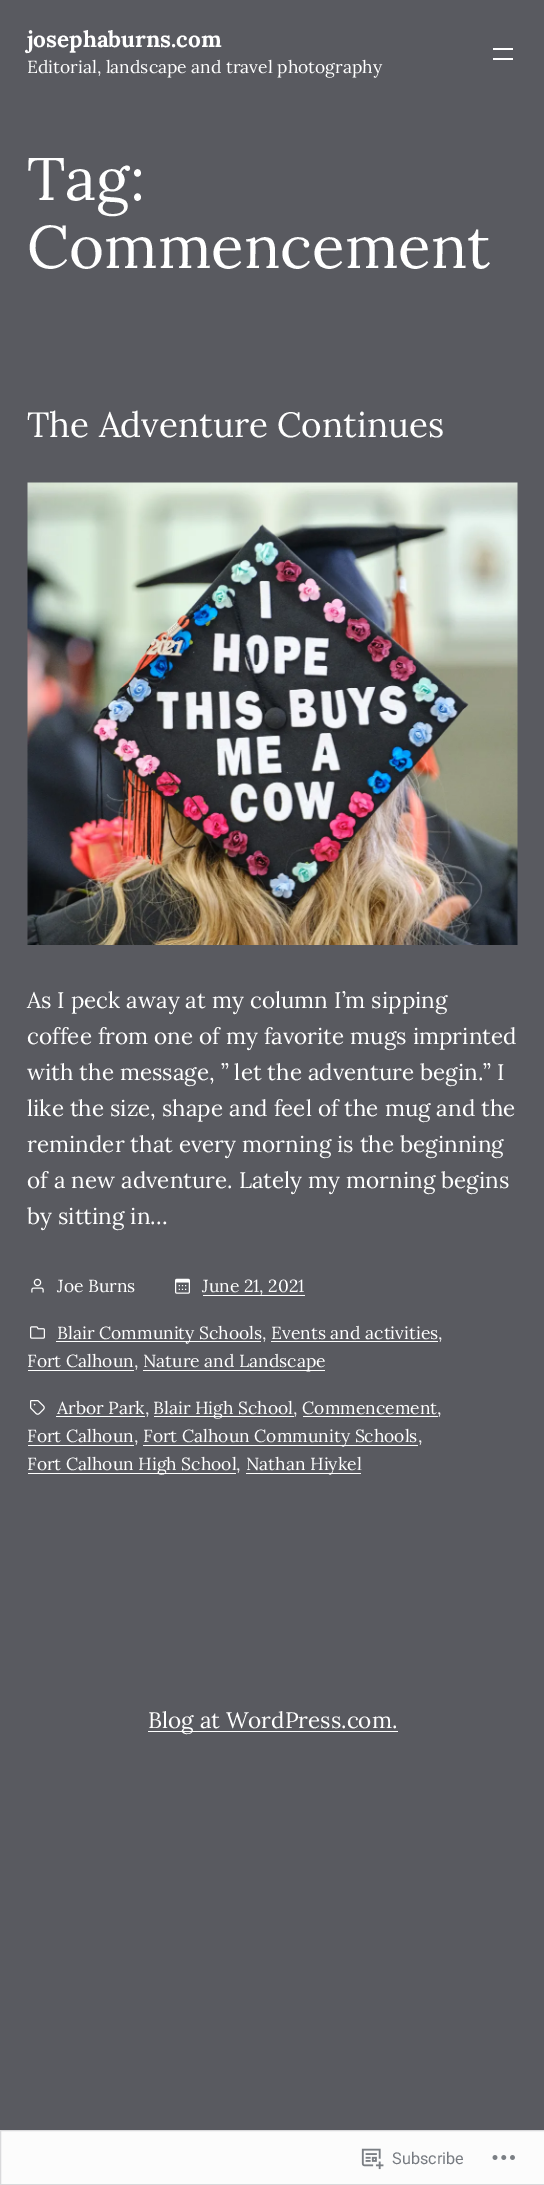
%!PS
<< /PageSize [544 2185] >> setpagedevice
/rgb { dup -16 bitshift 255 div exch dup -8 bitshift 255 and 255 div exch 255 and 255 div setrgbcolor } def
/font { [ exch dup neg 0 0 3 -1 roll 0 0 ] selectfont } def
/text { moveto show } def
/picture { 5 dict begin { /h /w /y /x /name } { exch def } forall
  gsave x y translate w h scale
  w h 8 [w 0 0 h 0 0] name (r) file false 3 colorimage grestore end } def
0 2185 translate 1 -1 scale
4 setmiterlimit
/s1 { /Lora-Bold 22.5 font 16#FFFFFF rgb } def
/s2 { /Lora-Regular 17.5 font 16#FFFFFF rgb } def
/s3 { /Lora-Regular 60 font 16#FFFFFF rgb } def
/s4 { /Lora-Regular 35 font 16#FFFFFF rgb } def
/s5 { /Lora-Regular 22.5 font 16#FFFFFF rgb } def
/s6 { /Roboto-Regular 16.25 font 16#777B81 rgb } def
16#595A60 rgb
0 0 544 2185 rectfill
s1
(josephaburns.com) 27 47 text
s2
(Editorial, landscape and travel photography) 27 73 text
493 48 20 2 rectfill
493 58 20 2 rectfill
s3
(Tag:) 27 200 text
(Commencement) 27 268 text
s4
(The Adventure Continues) 27 437 text
(pic1.raw) 27 482 491 463 picture
s5
(As I peck away at my column I’m sipping) 27 1008 text
(coffee from one of my favorite mugs imprinted) 27 1044 text
(with the message, ” let the adventure begin.” I) 27 1080 text
(like the size, shape and feel of the mug and the) 27 1116 text
(reminder that every morning is the beginning) 27 1152 text
(of a new adventure. Lately my morning begins) 27 1188 text
(by sitting in…) 27 1224 text
(pic2.raw) 31 1278 13 15 picture
s2
(Joe Burns) 57 1292 text
(pic3.raw) 175 1278 15 16 picture
203 1295 102 1 rectfill
(June 21, 2021) 202 1292 text
(pic4.raw) 30 1326 15 13 picture
56 1341 205 1 rectfill
(Blair Community Schools, Events and activities,) 57 1339 text
271 1341 167 1 rectfill
28 1370 106 1 rectfill
(Fort Calhoun,) 27 1367 text
143 1370 182 1 rectfill
(Nature and Landscape) 143 1367 text
(pic5.raw) 30 1400 15 15 picture
56 1416 89 1 rectfill
(Arbor Park,) 57 1414 text
154 1416 140 1 rectfill
(Blair High School, Commencement,) 153 1414 text
303 1416 135 1 rectfill
28 1445 106 1 rectfill
(Fort Calhoun,) 27 1442 text
143 1445 275 1 rectfill
(Fort Calhoun Community Schools,) 143 1442 text
28 1473 208 1 rectfill
(Fort Calhoun High School,) 27 1470 text
246 1473 115 1 rectfill
(Nathan Hiykel) 246 1470 text
148 1731 250 1 rectfill
s5
(Blog at WordPress.com.) 148 1728 text
16#FCFCFC rgb
0.5 2130.5 moveto 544.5 2130.5 lineto 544.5 2184.5 lineto 0.5 2184.5 lineto closepath gsave fill grestore
16#D9D9DB rgb
stroke
(pic6.raw) 361 2148 23 22 picture
s6
(Subscribe) 392 2164 text
(pic7.raw) 492 2155 23 5 picture
showpage
